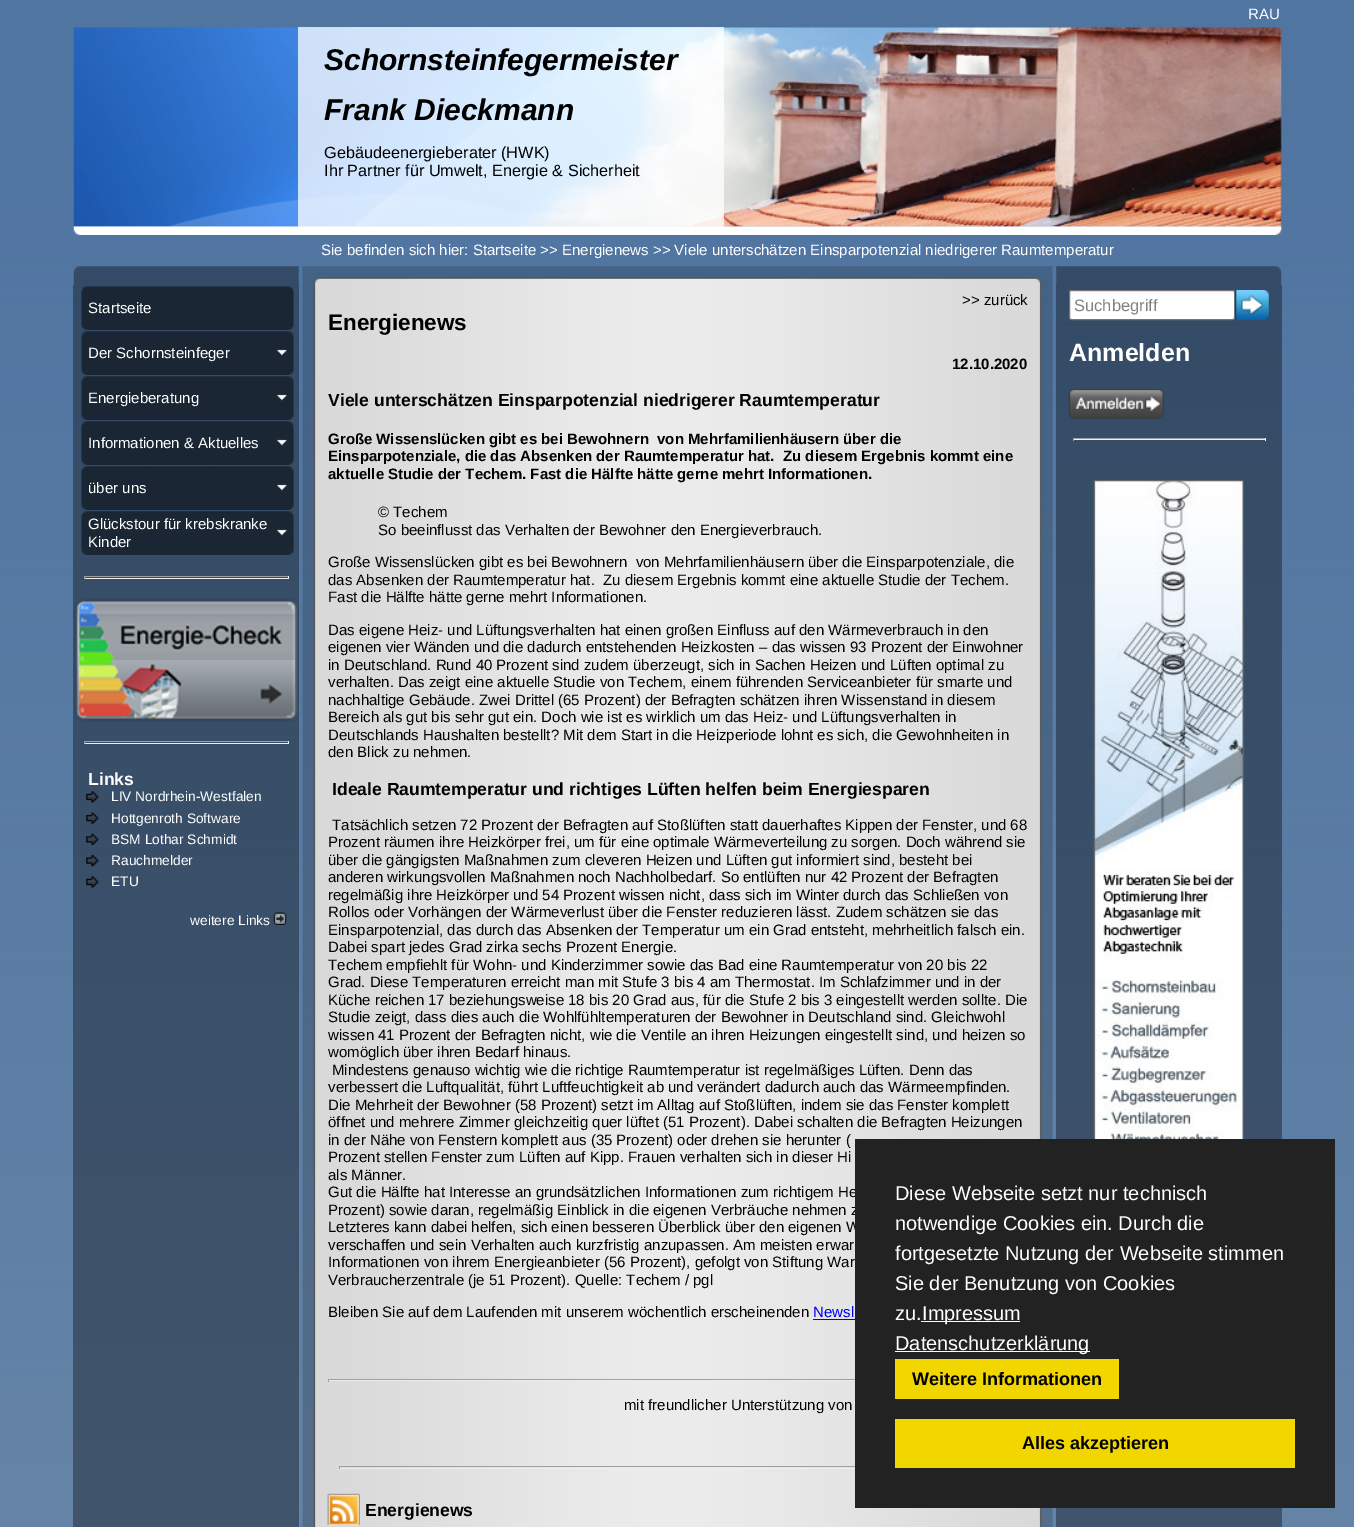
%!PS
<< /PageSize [1354 1527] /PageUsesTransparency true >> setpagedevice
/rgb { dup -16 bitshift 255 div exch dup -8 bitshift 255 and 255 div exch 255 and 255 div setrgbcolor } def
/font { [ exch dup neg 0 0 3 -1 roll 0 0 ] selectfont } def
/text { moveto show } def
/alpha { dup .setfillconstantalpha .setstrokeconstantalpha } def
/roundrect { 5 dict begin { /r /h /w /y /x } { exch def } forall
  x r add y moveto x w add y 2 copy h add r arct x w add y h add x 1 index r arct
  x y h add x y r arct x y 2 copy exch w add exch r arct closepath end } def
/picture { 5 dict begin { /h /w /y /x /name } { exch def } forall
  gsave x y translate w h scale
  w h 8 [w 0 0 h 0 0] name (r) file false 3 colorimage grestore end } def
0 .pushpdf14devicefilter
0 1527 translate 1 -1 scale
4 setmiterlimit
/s1 { /LiberationSans-Regular 15 font 16#FFFFFF rgb } def
/s2 { /LiberationSans-BoldItalic 30 font 16#000000 rgb } def
/s3 { /LiberationSans-Regular 16.25 font 16#000000 rgb } def
/s4 { /LiberationSans-Bold 17.55 font 16#FFFFFF rgb } def
/s5 { /LiberationSans-Regular 13.75 font 16#FFFFFF rgb } def
/s6 { /LiberationSans-Regular 15 font 16#000000 rgb } def
/s7 { /LiberationSans-Bold 22.5 font 16#000000 rgb } def
/s8 { /LiberationSans-Bold 15 font 16#000000 rgb } def
/s9 { /LiberationSans-Bold 17.55 font 16#000000 rgb } def
/s10 { /LiberationSans-Regular 15 font 16#0000EE rgb } def
/s11 { /LiberationSans-Regular 16.5 font 16#808080 rgb } def
/s12 { /LiberationSans-Bold 25 font 16#FFFFFF rgb } def
/s13 { /LiberationSans-Regular 20 font 16#FFFFFF rgb } def
/s14 { /LiberationSans-Bold 18 font 16#000000 rgb } def
16#FFFFFF rgb
0 0 1354 1527 rectfill
(pic1.raw) 0 0 1354 1527 picture
s1
(RAU) 1248 19 text
(pic3.raw) 73 226 1209 9 picture
(pic2.raw) 73 27 1209 200 picture
0.75 alpha
298 27 426 200 rectfill
1 alpha
s2
(Schornsteinfegermeister) 324 70 text
(Frank Dieckmann) 324 120 text
s3
(Gebäudeenergieberater \(HWK\)) 324 158 text
(Ihr Partner für Umwelt, Energie & Sicherheit) 324 176 text
s1
(Sie befinden sich hier: Startseite >> Energienews >> Viele unterschätzen Einsparpotenzial niedrigerer Raumtemperatur) 321 255 text
(pic4.raw) 73 266 226 19 picture
(pic5.raw) 302 266 751 19 picture
(pic6.raw) 1056 266 226 19 picture
0.36 alpha
16#000000 rgb
73 285 226 1242 rectfill
1 alpha
(pic7.raw) 81 286 213 44 picture
s1
(Startseite) 88 313 text
(pic8.raw) 81 331 213 44 picture
(Der Schornsteinfeger) 88 358 text
(pic9.raw) 277 349 10 7 picture
(pic10.raw) 81 376 213 44 picture
(Energieberatung) 88 403 text
(pic11.raw) 277 394 10 7 picture
(pic12.raw) 81 421 213 44 picture
(Informationen & Aktuelles) 88 448 text
(pic13.raw) 277 439 10 7 picture
(pic14.raw) 81 466 213 44 picture
(über uns) 88 493 text
(pic15.raw) 277 484 10 7 picture
(pic16.raw) 81 511 213 44 picture
(Glückstour für krebskranke) 88 529 text
(Kinder) 88 547 text
(pic17.raw) 277 529 10 7 picture
16#9F9F9F rgb
84 576 205 1 rectfill
16#EEEEEE rgb
288 576 1 3 rectfill
84 578 205 1 rectfill
16#9F9F9F rgb
84 576 1 3 rectfill
(pic18.raw) 74 598 225 124 picture
84 741 205 1 rectfill
16#EEEEEE rgb
288 741 1 3 rectfill
84 743 205 1 rectfill
16#9F9F9F rgb
84 741 1 3 rectfill
s4
(Links) 88 785 text
(pic19.raw) 86 791 13 12 picture
s5
(LIV Nordrhein-Westfalen) 111 801 text
(pic20.raw) 86 812 13 12 picture
(Hottgenroth Software) 111 823 text
(pic21.raw) 86 833 13 12 picture
(BSM Lothar Schmidt) 111 844 text
(pic22.raw) 86 855 13 12 picture
(Rauchmelder) 111 865 text
(pic23.raw) 86 876 13 12 picture
(ETU) 111 886 text
(weitere Links) 190 925 text
(pic24.raw) 273 912 14 13 picture
(pic25.raw) 302 285 751 1242 picture
s6
(>> zurück) 962 305 text
s7
(Energienews) 328 330 text
s8
(12.10.2020) 952 369 text
s9
(Viele unterschätzen Einsparpotenzial niedrigerer Raumtemperatur) 328 406 text
s8
(Große Wissenslücken gibt es bei Bewohnern  von Mehrfamilienhäusern über die) 328 444 text
(Einsparpotenziale, die das Absenken der Raumtemperatur hat.  Zu diesem Ergebnis kommt eine) 328 461 text
(aktuelle Studie der Techem. Fast die Hälfte hätte gerne mehrt Informationen.) 328 479 text
s6
(© Techem) 378 517 text
(So beeinflusst das Verhalten der Bewohner den Energieverbrauch.) 378 535 text
(Große Wissenslücken gibt es bei Bewohnern  von Mehrfamilienhäusern über die Einsparpotenziale, die) 328 567 text
(das Absenken der Raumtemperatur hat.  Zu diesem Ergebnis kommt eine aktuelle Studie der Techem.) 328 585 text
(Fast die Hälfte hätte gerne mehrt Informationen.) 328 602 text
(Das eigene Heiz- und Lüftungsverhalten hat einen großen Einfluss auf den Wärmeverbrauch in den) 328 635 text
(eigenen vier Wänden und die dadurch entstehenden Heizkosten – das wissen 93 Prozent der Einwohner) 328 652 text
(in Deutschland. Rund 40 Prozent sind zudem überzeugt, sich in Sachen Heizen und Lüften optimal zu) 328 670 text
(verhalten. Das zeigt eine aktuelle Studie von Techem, einem führenden Serviceanbieter für smarte und) 328 687 text
(nachhaltige Gebäude. Zwei Drittel \(65 Prozent\) der Befragten schätzen ihren Wissenstand in diesem) 328 705 text
(Bereich als gut bis sehr gut ein. Doch wie ist es wirklich um das Heiz- und Lüftungsverhalten in) 328 722 text
(Deutschlands Haushalten bestellt? Mit dem Start in die Heizperiode lohnt es sich, die Gewohnheiten in) 328 740 text
(den Blick zu nehmen.) 328 757 text
s9
(Ideale Raumtemperatur und richtiges Lüften helfen beim Energiesparen) 332 795 text
s6
(Tatsächlich setzen 72 Prozent der Befragten auf Stoßlüften statt dauerhaftes Kippen der Fenster, und 68) 332 830 text
(Prozent räumen ihre Heizkörper frei, um für eine optimale Wärmeverteilung zu sorgen. Doch während sie) 328 847 text
(über die gängigsten Maßnahmen zum cleveren Heizen und Lüften gut informiert sind, besteht bei) 328 865 text
(anderen wirkungsvollen Maßnahmen noch Nachholbedarf. So entlüften nur 42 Prozent der Befragten) 328 882 text
(regelmäßig ihre Heizkörper und 54 Prozent wissen nicht, dass sich im Winter durch das Schließen von) 328 900 text
(Rollos oder Vorhängen der Wärmeverlust über die Fenster reduzieren lässt. Zudem schätzen sie das) 328 917 text
(Einsparpotenzial, das durch das Absenken der Temperatur um ein Grad entsteht, mehrheitlich falsch ein.) 328 935 text
(Dabei spart jedes Grad zirka sechs Prozent Energie.) 328 952 text
(Techem empfiehlt für Wohn- und Kinderzimmer sowie das Bad eine Raumtemperatur von 20 bis 22) 328 970 text
(Grad. Diese Temperaturen erreicht man mit Stufe 3 bis 4 am Thermostat. Im Schlafzimmer und in der) 328 987 text
(Küche reichen 17 beziehungsweise 18 bis 20 Grad aus, für die Stufe 2 bis 3 eingestellt werden sollte. Die) 328 1005 text
(Studie zeigt, dass dies auch die Wohlfühltemperaturen der Bewohner in Deutschland sind. Gleichwohl) 328 1022 text
(wissen 41 Prozent der Befragten nicht, wie die Ventile an ihren Heizungen eingestellt sind, und heizen so) 328 1040 text
(womöglich über ihren Bedarf hinaus.) 328 1057 text
(Mindestens genauso wichtig wie die richtige Raumtemperatur ist regelmäßiges Lüften. Denn das) 332 1075 text
(verbessert die Luftqualität, führt Luftfeuchtigkeit ab und verändert dadurch auch das Wärmeempfinden.) 328 1092 text
(Die Mehrheit der Bewohner \(58 Prozent\) setzt im Alltag auf Stoßlüften, indem sie das Fenster komplett) 328 1110 text
(öffnet und mehrere Zimmer gleichzeitig quer lüftet \(51 Prozent\). Dabei schalten die Befragten Heizungen) 328 1127 text
(in der Nähe von Fenstern komplett aus \(35 Prozent\) oder drehen sie herunter \() 328 1145 text
(Prozent stellen Fenster zum Lüften auf Kipp. Frauen verhalten sich in dieser Hi) 328 1162 text
(als Männer.) 328 1180 text
(Gut die Hälfte hat Interesse an grundsätzlichen Informationen zum richtigem He) 328 1197 text
(Prozent\) sowie daran, regelmäßig Einblick in die eigenen Verbräuche nehmen z) 328 1215 text
(Letzteres kann dabei helfen, sich einen besseren Überblick über den eigenen W) 328 1232 text
(verschaffen und sein Verhalten auch kurzfristig anzupassen. Am meisten erwar) 328 1250 text
(Informationen von ihrem Energieanbieter \(56 Prozent\), gefolgt von Stiftung War) 328 1267 text
(Verbraucherzentrale \(je 51 Prozent\). Quelle: Techem / pgl) 328 1285 text
(Bleiben Sie auf dem Laufenden mit unserem wöchentlich erscheinenden) 328 1317 text
s10
(Newsl) 813 1317 text
813 1319 42 1 rectfill
16#9F9F9F rgb
328 1379 527 1 rectfill
16#EEEEEE rgb
328 1380 527 1 rectfill
16#9F9F9F rgb
328 1379 1 3 rectfill
s6
(mit freundlicher Unterstützung von) 624 1410 text
16#9F9F9F rgb
339 1466 516 1 rectfill
16#EEEEEE rgb
339 1468 516 1 rectfill
16#9F9F9F rgb
339 1466 1 3 rectfill
(pic26.raw) 327 1493 33 32 picture
s9
(Energienews) 365 1516 text
0.36 alpha
1056 285 226 1242 rectfill
1 alpha
16#FFFFFF rgb
1069.5 290.5 165 29 2 roundrect gsave fill grestore
16#767676 rgb
stroke
s11
(Suchbegriff) 1074 311 text
(pic27.raw) 1235 290 34 30 picture
s12
(Anmelden) 1069 361 text
(pic28.raw) 1068 388 96 31 picture
16#9F9F9F rgb
1073 438 193 1 rectfill
16#EEEEEE rgb
1265 438 1 3 rectfill
1073 439 193 1 rectfill
16#9F9F9F rgb
1073 438 1 3 rectfill
(pic29.raw) 1093 480 151 659 picture
16#222222 rgb
855 1139 480 369 rectfill
s13
(Diese Webseite setzt nur technisch) 895 1200 text
(notwendige Cookies ein. Durch die) 895 1230 text
(fortgesetzte Nutzung der Webseite stimmen) 895 1260 text
(Sie der Benutzung von Cookies) 895 1290 text
(zu.) 895 1320 text
921 1321 99 1 rectfill
(Impressum) 922 1320 text
895 1351 195 1 rectfill
(Datenschutzerklärung) 895 1350 text
16#F1D600 rgb
895 1359 224 40 rectfill
s14
(Weitere Informationen) 912 1385 text
16#F1D600 rgb
895 1419 400 49 rectfill
s14
(Alles akzeptieren) 1022 1449 text
.poppdf14devicefilter showpage
